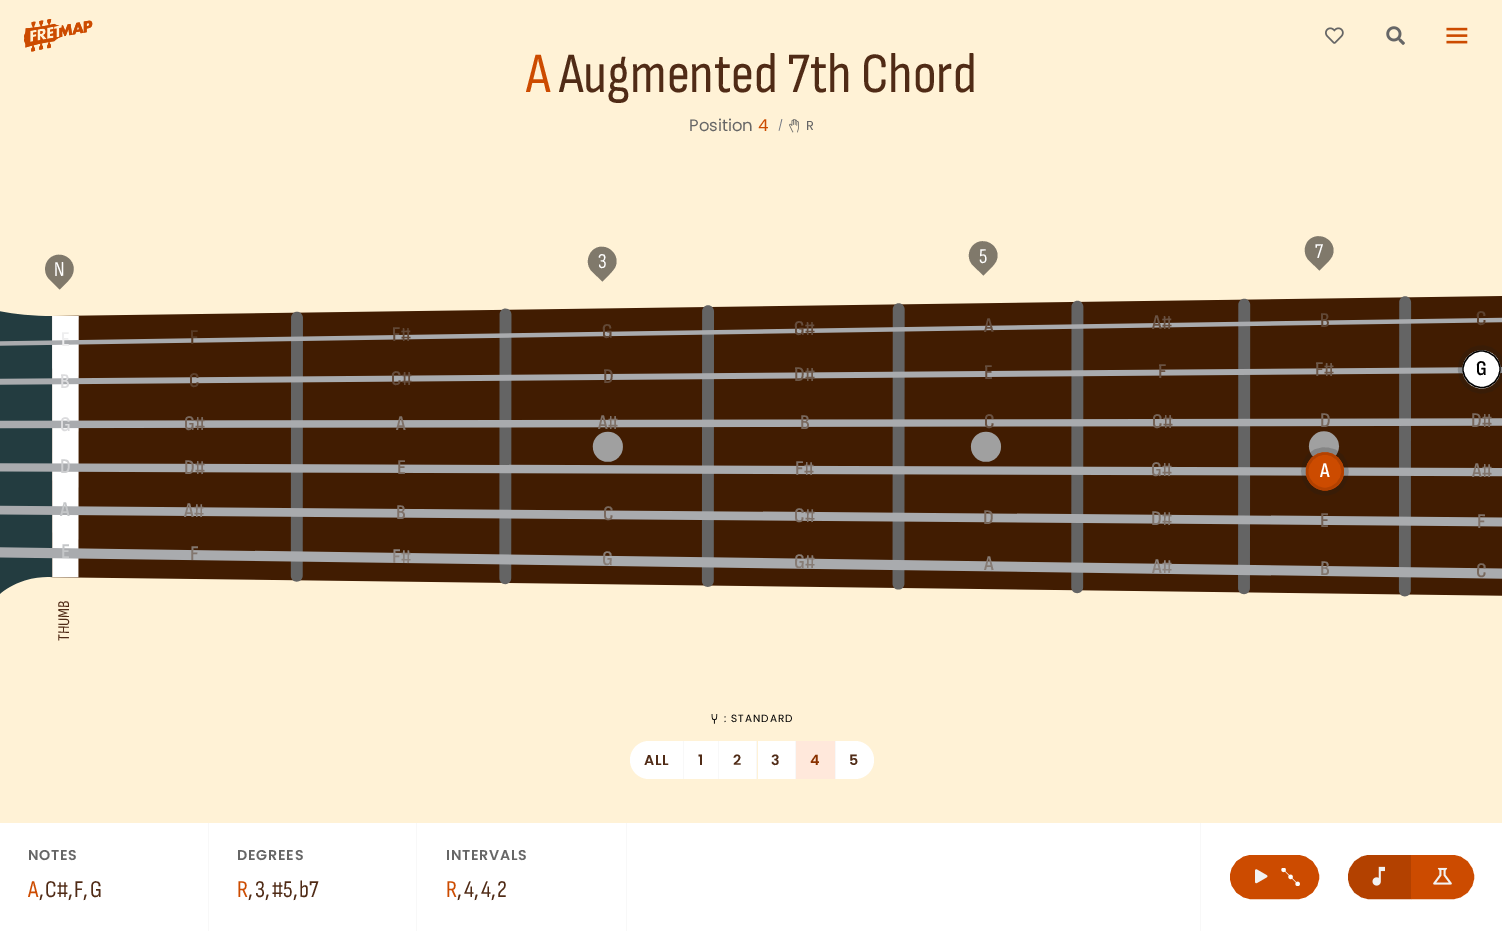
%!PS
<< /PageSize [1502 931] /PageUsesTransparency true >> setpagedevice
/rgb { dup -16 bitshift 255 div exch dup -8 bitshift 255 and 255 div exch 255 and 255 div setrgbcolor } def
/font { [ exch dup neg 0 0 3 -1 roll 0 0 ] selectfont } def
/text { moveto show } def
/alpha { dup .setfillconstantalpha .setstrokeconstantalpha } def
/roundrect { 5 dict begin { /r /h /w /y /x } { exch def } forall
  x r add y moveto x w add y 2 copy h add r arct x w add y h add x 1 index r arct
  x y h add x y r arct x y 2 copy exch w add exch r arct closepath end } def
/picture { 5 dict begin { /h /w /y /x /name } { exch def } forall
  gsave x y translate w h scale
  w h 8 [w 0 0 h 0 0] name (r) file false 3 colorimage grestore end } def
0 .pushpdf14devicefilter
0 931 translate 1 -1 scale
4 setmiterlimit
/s1 { /SofiaSansCondensed-Regular 57 font 16#CC4B00 rgb } def
/s2 { /SofiaSansCondensed-Regular 57 font 16#502B16 rgb } def
/s3 { /Poppins-Regular 16.5 font 16#666666 rgb } def
/s4 { /Poppins-Regular 16.5 font 16#CC4B00 rgb } def
/s5 { /Poppins-Regular 10.5 font 16#6B7280 rgb } def
/s6 { /Poppins-Regular 13 font 16#666666 rgb } def
/s7 { /SofiaSansCondensed-Regular 24 font 16#CC4B00 rgb } def
/s8 { /SofiaSansCondensed-Regular 24 font 16#502B16 rgb } def
16#FFF2D6 rgb
0 0 1502 931 rectfill
(pic1.raw) 24 19 69 33 picture
(pic2.raw) 1325 27 19 17 picture
(pic3.raw) 1386 26 19 19 picture
(pic4.raw) 1446 27 22 17 picture
s1
(A) 526 92 text
s2
(Augmented 7th Chord) 559 92 text
s3
(Position) 689 131 text
s4
(4) 758 131 text
s5
(/) 778 129 text
(pic5.raw) 789 119 10 14 picture
s6
(R) 806 130 text
(pic6.raw) 0 296 1502 301 picture
16#80796B rgb
49 259 moveto 60 248 78.5 260 72.5 274.5 curveto 71 279 63.5 285.5 59.5 289.5 curveto 49.5 279.5 lineto 44 274 43.5 265 49 259 curveto closepath fill
/SofiaSansCondensed-Regular 21 font
16#FFFFFF rgb
gsave 54 276 translate -0.9 rotate 0 0 moveto (N) show grestore
/SofiaSansCondensed-SemiBold 21 font
16#EEEEEF rgb
gsave 61 346 translate -0.9 rotate 0 0 moveto (E) show grestore
16#573A25 rgb
gsave 190 344 translate -0.9 rotate 0 0 moveto (F) show grestore
16#614836 rgb
gsave 392 341 translate -0.9 rotate 0 0 moveto (F#) show grestore
16#80796B rgb
592 251 moveto 602.5 240 621 252 615.5 266.5 curveto 613.5 271 606 277.5 602.5 281.5 curveto 592 271.5 lineto 586.5 266 586.5 257 592 251 curveto closepath fill
/SofiaSansCondensed-Regular 21 font
16#FFFFFF rgb
gsave 598 268 translate -0.9 rotate 0 0 moveto (3) show grestore
/SofiaSansCondensed-SemiBold 21 font
16#614836 rgb
gsave 602 338 translate -0.9 rotate 0 0 moveto (G) show grestore
16#654D3D rgb
gsave 794 335 translate -0.9 rotate 0 0 moveto (G#) show grestore
16#80796B rgb
973 245.5 moveto 983.5 234.5 1002 246.5 996.5 260.5 curveto 994.5 265.5 987 271.5 983.5 275.5 curveto 973 265.5 lineto 967.5 260 967.5 251 973 245.5 curveto closepath fill
/SofiaSansCondensed-Regular 21 font
16#FFFFFF rgb
gsave 979 263 translate -0.9 rotate 0 0 moveto (5) show grestore
/SofiaSansCondensed-SemiBold 21 font
16#654D3D rgb
gsave 984 332 translate -0.9 rotate 0 0 moveto (A) show grestore
16#695243 rgb
gsave 1152 329 translate -0.9 rotate 0 0 moveto (A#) show grestore
16#80796B rgb
1308.5 240.5 moveto 1319.5 229.5 1338 241.5 1332.5 255.5 curveto 1330.5 260.5 1323 266.5 1319.5 270.5 curveto 1309 260.5 lineto 1303.5 255 1303.5 246 1308.5 240.5 curveto closepath fill
/SofiaSansCondensed-Regular 21 font
16#FFFFFF rgb
gsave 1315 258 translate -0.9 rotate 0 0 moveto (7) show grestore
/SofiaSansCondensed-SemiBold 21 font
16#614836 rgb
gsave 1320 327 translate -0.9 rotate 0 0 moveto (B) show grestore
16#5C412E rgb
gsave 1476 325 translate -0.9 rotate 0 0 moveto (C) show grestore
16#DBDBDD rgb
gsave 60 388 translate -0.5 rotate 0 0 moveto (B) show grestore
16#5C412E rgb
gsave 189 387 translate -0.5 rotate 0 0 moveto (C) show grestore
16#654D3D rgb
gsave 391 385 translate -0.5 rotate 0 0 moveto (C#) show grestore
gsave 603 383 translate -0.5 rotate 0 0 moveto (D) show grestore
16#6D5849 rgb
gsave 794 381 translate -0.5 rotate 0 0 moveto (D#) show grestore
16#654D3D rgb
gsave 984 379 translate -0.5 rotate 0 0 moveto (E) show grestore
16#695243 rgb
gsave 1158 378 translate -0.5 rotate 0 0 moveto (F) show grestore
16#6D5849 rgb
gsave 1315 376 translate -0.5 rotate 0 0 moveto (F#) show grestore
0.2 alpha
16#1A1A1A rgb
5 setlinewidth
1481.5 348 moveto 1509.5 347.5 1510 390.5 1482 391 curveto 1453.5 391 1453 348 1481.5 348 curveto closepath stroke
1 alpha
16#FFFFFF rgb
1481.5 350.5 moveto 1492 350 1500.5 358.5 1500.5 369 curveto 1500.5 379.5 1492.5 388 1482 388.5 curveto 1471.5 388.5 1462.5 380 1462.5 369.5 curveto 1462.5 359 1471 350.5 1481.5 350.5 curveto closepath fill
16#000000 rgb
1.3 setlinewidth
1481.5 351 moveto 1491.5 351 1500 359 1500 369 curveto 1500 379 1492 387.5 1482 387.5 curveto 1471.5 387.5 1463.5 379.5 1463 369.5 curveto 1463 359.5 1471.5 351 1481.5 351 curveto closepath stroke
gsave 1476 375 translate -0.5 rotate 0 0 moveto (G) show grestore
16#DBDBDD rgb
gsave 60 431 translate -0.1 rotate 0 0 moveto (G) show grestore
16#79695E rgb
gsave 184 430 translate -0.1 rotate 0 0 moveto (G#) show grestore
16#7F7168 rgb
gsave 396 430 translate -0.1 rotate 0 0 moveto (A) show grestore
gsave 598 429 translate -0.1 rotate 0 0 moveto (A#) show grestore
16#79695E rgb
gsave 800 429 translate -0.1 rotate 0 0 moveto (B) show grestore
16#695243 rgb
gsave 984 428 translate -0.1 rotate 0 0 moveto (C) show grestore
16#746256 rgb
gsave 1152 428 translate -0.1 rotate 0 0 moveto (C#) show grestore
16#79695E rgb
gsave 1320 427 translate -0.1 rotate 0 0 moveto (D) show grestore
gsave 1471 427 translate -0.1 rotate 0 0 moveto (D#) show grestore
16#CECFD1 rgb
gsave 60 473 translate 0.1 rotate 0 0 moveto (D) show grestore
16#7F7168 rgb
gsave 184 474 translate 0.1 rotate 0 0 moveto (D#) show grestore
16#79695E rgb
gsave 397 474 translate 0.1 rotate 0 0 moveto (E) show grestore
16#7F7168 rgb
gsave 795 475 translate 0.1 rotate 0 0 moveto (F#) show grestore
gsave 1151 476 translate 0.1 rotate 0 0 moveto (G#) show grestore
0.2 alpha
16#1A1A1A rgb
5 setlinewidth
1325 450 moveto 1353.5 450 1353 493 1325 493 curveto 1296.5 492.5 1296.5 449.5 1325 450 curveto closepath stroke
1 alpha
16#CC4B00 rgb
1325 452.5 moveto 1335.5 452.5 1344 461 1344 471.5 curveto 1344 482 1335.5 490.5 1325 490.5 curveto 1314.5 490.5 1306 481.5 1306 471.5 curveto 1306 461 1314.5 452.5 1325 452.5 curveto closepath fill
16#B34100 rgb
2.5 setlinewidth
1325 453.5 moveto 1335 453.5 1342.5 461.5 1342.5 471.5 curveto 1342.5 481 1334.5 489 1325 489 curveto 1315 489 1307 481 1307 471.5 curveto 1307 461.5 1315 453.5 1325 453.5 curveto closepath stroke
16#FFFFFF rgb
gsave 1320 477 translate 0.1 rotate 0 0 moveto (A) show grestore
16#82766E rgb
gsave 1472 477 translate 0.1 rotate 0 0 moveto (A#) show grestore
16#C4C6C8 rgb
gsave 60 516 translate 0.5 rotate 0 0 moveto (A) show grestore
16#877C75 rgb
gsave 184 517 translate 0.5 rotate 0 0 moveto (A#) show grestore
16#7F7168 rgb
gsave 396 519 translate 0.5 rotate 0 0 moveto (B) show grestore
16#79695E rgb
gsave 603 520 translate 0.5 rotate 0 0 moveto (C) show grestore
16#7F7168 rgb
gsave 794 522 translate 0.5 rotate 0 0 moveto (C#) show grestore
16#79695E rgb
gsave 983 524 translate 0.5 rotate 0 0 moveto (D) show grestore
16#82766E rgb
gsave 1151 525 translate 0.5 rotate 0 0 moveto (D#) show grestore
16#746256 rgb
gsave 1320 527 translate 0.5 rotate 0 0 moveto (E) show grestore
16#7F7168 rgb
gsave 1477 528 translate 0.5 rotate 0 0 moveto (F) show grestore
16#C4C6C8 rgb
gsave 61 558 translate 0.8 rotate 0 0 moveto (E) show grestore
/SofiaSansCondensed-Regular 16.5 font
16#502B16 rgb
gsave 69 641 translate -89.2 rotate 0 0 moveto (THUMB) show grestore
/SofiaSansCondensed-SemiBold 21 font
16#82766E rgb
gsave 190 560 translate 0.8 rotate 0 0 moveto (F) show grestore
16#8D847F rgb
gsave 392 563 translate 0.8 rotate 0 0 moveto (F#) show grestore
16#877C75 rgb
gsave 602 565 translate 0.8 rotate 0 0 moveto (G) show grestore
gsave 794 568 translate 0.8 rotate 0 0 moveto (G#) show grestore
gsave 984 570 translate 0.8 rotate 0 0 moveto (A) show grestore
16#8D847F rgb
gsave 1152 573 translate 0.8 rotate 0 0 moveto (A#) show grestore
16#82766E rgb
gsave 1320 575 translate 0.8 rotate 0 0 moveto (B) show grestore
16#79695E rgb
gsave 1476 577 translate 0.8 rotate 0 0 moveto (C) show grestore
16#FFFFFF rgb
0 823 1502 108 rectfill
16#F8F8F8 rgb
208 823 1 108 rectfill
/Poppins-SemiBold 14.25 font
16#666666 rgb
28 860 moveto 0.75 0 (NOTES) ashow
s7
(A) 28 897 text
s8
(,) 39 897 text
(C#,) 45 897 text
(F,) 74 897 text
(G) 90 897 text
16#F8F8F8 rgb
416 823 1 108 rectfill
/Poppins-SemiBold 14.25 font
16#666666 rgb
237 860 moveto 0.75 0 (DEGREES) ashow
s7
(R) 237 897 text
s8
(,) 248 897 text
(3,) 255 897 text
(#5,) 272 897 text
(b7) 299 897 text
16#F8F8F8 rgb
626 823 1 108 rectfill
/Poppins-SemiBold 14.25 font
16#666666 rgb
446 860 moveto 0.75 0 (INTERVALS) ashow
s7
(R) 446 897 text
s8
(,) 457 897 text
(4,) 464 897 text
(4,) 481 897 text
(2) 497 897 text
16#F8F8F8 rgb
1200 823 1 108 rectfill
16#CC4B00 rgb
1231.5 856.5 86 41 20.5 roundrect gsave fill grestore
3 setlinewidth
stroke
(pic7.raw) 1255 869 13 15 picture
(pic8.raw) 1281 868 19 18 picture
16#B34100 rgb
1370 856.5 moveto 1409.5 856.5 lineto 1409.5 897.5 lineto 1370 897.5 lineto 1358.5 897.5 1349.5 888.5 1349.5 877 curveto 1349.5 865.5 1358.5 856.5 1370 856.5 curveto closepath gsave fill grestore
stroke
(pic9.raw) 1372 866 13 20 picture
16#CC4B00 rgb
1412.5 856.5 moveto 1452 856.5 lineto 1463.5 856.5 1472.5 865.5 1472.5 877 curveto 1472.5 888.5 1463.5 897.5 1452 897.5 curveto 1412.5 897.5 lineto closepath gsave fill grestore
stroke
(pic10.raw) 1433 867 19 18 picture
(pic11.raw) 711 714 7 10 picture
/Poppins-Regular 10.5 font
16#000000 rgb
724 722 moveto 1 0 (: STANDARD) ashow
16#FFFFFF rgb
649 741 moveto 683 741 lineto 683 779 lineto 649 779 lineto 638.5 779 630 770.5 630 760 curveto 630 749.5 638.5 741 649 741 curveto closepath fill
16#F8F8F8 rgb
683 741 1 38 rectfill
/Poppins-SemiBold 14.25 font
16#502B16 rgb
644 765 moveto 0.5 0 (ALL) ashow
16#FFFFFF rgb
684 741 34 38 rectfill
16#F8F8F8 rgb
718 741 1 38 rectfill
16#502B16 rgb
698 765 moveto 0.5 0 (1) ashow
16#FFFFFF rgb
719 741 37 38 rectfill
16#F8F8F8 rgb
756 741 1 38 rectfill
16#502B16 rgb
733 765 moveto 0.5 0 (2) ashow
16#FFFFFF rgb
758 741 37 38 rectfill
16#F8F8F8 rgb
795 741 1 38 rectfill
16#502B16 rgb
771 765 moveto 0.5 0 (3) ashow
16#FFE8DB rgb
796 741 39 38 rectfill
16#F8F8F8 rgb
835 741 1 38 rectfill
16#8A3200 rgb
810 765 moveto 0.5 0 (4) ashow
16#FFFFFF rgb
836 741 moveto 855 741 lineto 865.5 741 874 749.5 874 760 curveto 874 770.5 865.5 779 855 779 curveto 836 779 lineto closepath fill
16#502B16 rgb
849 765 moveto 0.5 0 (5) ashow
.poppdf14devicefilter showpage
